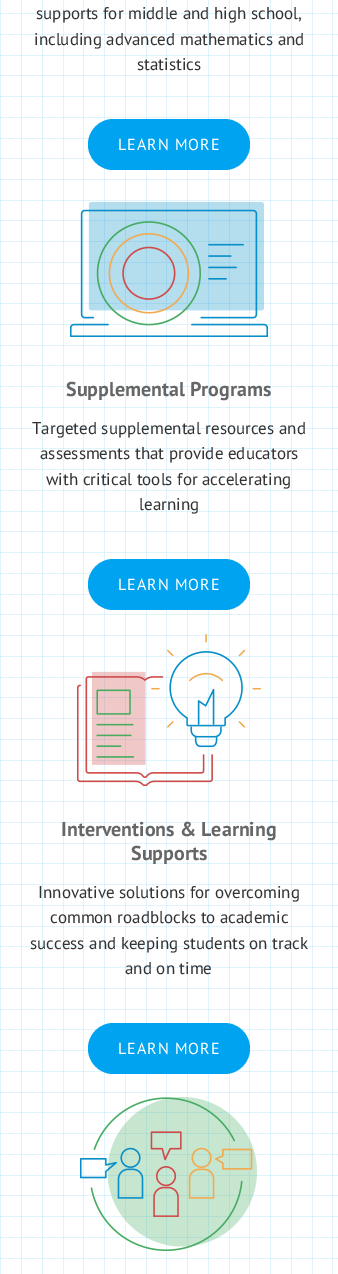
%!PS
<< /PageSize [338 1274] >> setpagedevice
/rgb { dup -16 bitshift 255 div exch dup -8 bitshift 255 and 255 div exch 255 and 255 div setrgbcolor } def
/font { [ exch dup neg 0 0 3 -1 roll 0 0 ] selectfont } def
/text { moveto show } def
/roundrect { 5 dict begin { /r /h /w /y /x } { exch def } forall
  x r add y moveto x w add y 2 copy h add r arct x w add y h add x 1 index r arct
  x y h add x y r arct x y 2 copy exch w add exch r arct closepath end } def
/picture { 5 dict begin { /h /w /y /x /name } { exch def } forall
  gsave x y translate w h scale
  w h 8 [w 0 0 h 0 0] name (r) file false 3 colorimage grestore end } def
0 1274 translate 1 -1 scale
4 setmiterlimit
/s1 { /PTSans-Regular 17 font 16#333333 rgb } def
/s2 { /PTSans-Bold 20 font 16#666666 rgb } def
16#FFFFFF rgb
0 0 338 1274 rectfill
(pic1.raw) 0 0 338 1274 picture
s1
(supports for middle and high school,) 36 19 text
(including advanced mathematics and) 34 45 text
(statistics) 137 70 text
16#00A3EF rgb
88 119 162 51 25.5 roundrect fill
/PTSans-Regular 16 font
16#FFFFFF rgb
118 150 moveto 1 0 (LEARN MORE) ashow
(pic2.raw) 70 202 198 135 picture
s2
(Supplemental Programs) 66 396 text
s1
(Targeted supplemental resources and) 32 434 text
(assessments that provide educators) 40 459 text
(with critical tools for accelerating) 46 485 text
(learning) 139 510 text
16#00A3EF rgb
88 559 162 51 25.5 roundrect fill
/PTSans-Regular 16 font
16#FFFFFF rgb
118 590 moveto 1 0 (LEARN MORE) ashow
(pic3.raw) 77 634 184 152 picture
s2
(Interventions & Learning) 61 836 text
(Supports) 131 860 text
s1
(Innovative solutions for overcoming) 38 898 text
(common roadblocks to academic) 50 923 text
(success and keeping students on track) 30 949 text
(and on time) 125 974 text
16#00A3EF rgb
88 1023 162 51 25.5 roundrect fill
/PTSans-Regular 16 font
16#FFFFFF rgb
118 1054 moveto 1 0 (LEARN MORE) ashow
(pic4.raw) 80 1097 177 154 picture
showpage
